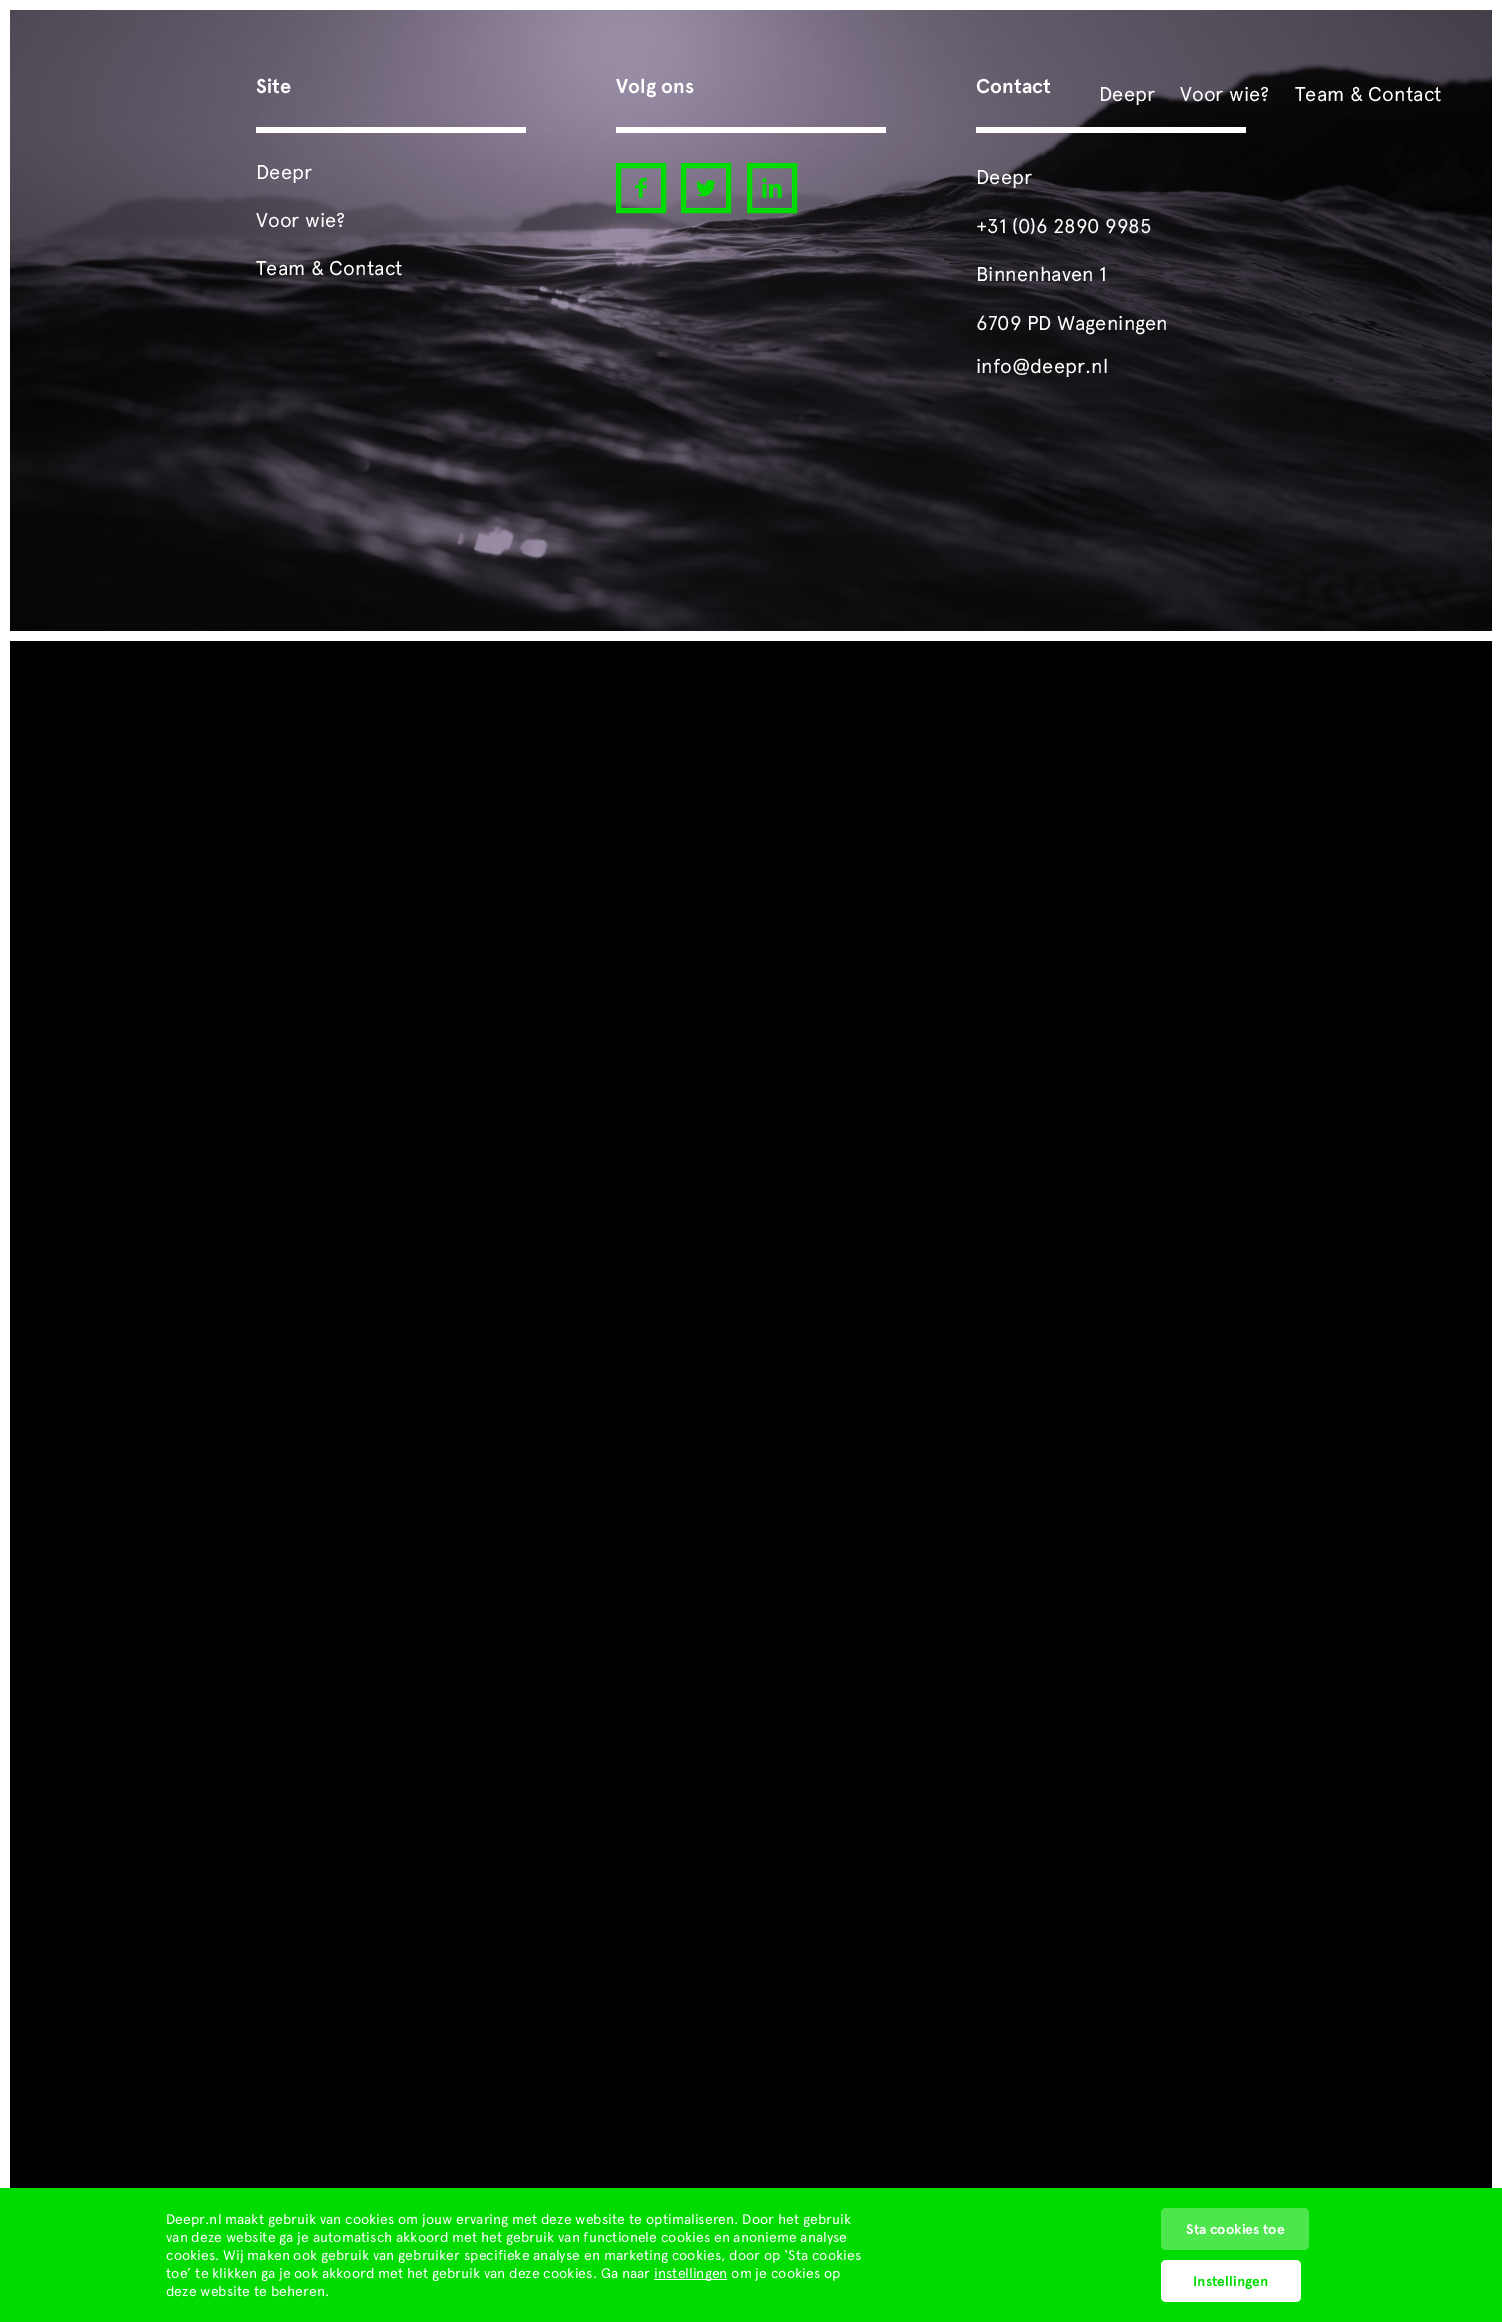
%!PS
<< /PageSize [1502 2322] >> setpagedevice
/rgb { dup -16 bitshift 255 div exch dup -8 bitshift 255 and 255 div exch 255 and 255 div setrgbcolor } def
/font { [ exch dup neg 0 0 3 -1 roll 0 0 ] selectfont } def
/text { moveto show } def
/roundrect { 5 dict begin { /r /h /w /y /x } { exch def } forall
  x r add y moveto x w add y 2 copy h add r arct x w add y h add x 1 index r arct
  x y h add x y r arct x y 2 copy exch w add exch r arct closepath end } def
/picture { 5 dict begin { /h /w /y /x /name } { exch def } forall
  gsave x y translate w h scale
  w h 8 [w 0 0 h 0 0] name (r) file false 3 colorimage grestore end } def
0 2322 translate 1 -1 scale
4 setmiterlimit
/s1 { /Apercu-Bold 20 font 16#FFFFFF rgb } def
/s2 { /Apercu-Regular 20 font 16#FFFFFF rgb } def
/s3 { /Apercu-Regular 14 font 16#FFFFFF rgb } def
/s4 { /Apercu-Bold 14 font 16#FFFFFF rgb } def
/s5 { /Apercu-Bold 14 font 16#00DC00 rgb } def
16#000000 rgb
0 0 1502 2322 rectfill
16#FFFFFF rgb
0 0 10 2188 rectfill
10 0 1482 10 rectfill
1492 0 10 2188 rectfill
(pic1.raw) 10 10 1482 621 picture
10 631 1482 10 rectfill
256 127 270 6 rectfill
s1
(Site) 256 93 text
s2
(Deepr) 256 179 text
(Voor wie?) 256 227 text
(Team & Contact) 256 275 text
616 127 270 6 rectfill
s1
(Volg ons) 616 93 text
(pic2.raw) 635 178 12 20 picture
16#00DC00 rgb
5 setlinewidth
618.5 165.5 45 45 rectstroke
(pic3.raw) 696 180 20 17 picture
683.5 165.5 45 45 rectstroke
(pic4.raw) 762 178 20 20 picture
749.5 165.5 45 45 rectstroke
16#FFFFFF rgb
976 127 270 6 rectfill
(Contact) 976 93 text
s2
(Deepr) 976 184 text
(+31 \(0\)6 2890 9985) 976 233 text
(Binnenhaven 1) 976 281 text
(6709 PD Wageningen) 976 330 text
(info@deepr.nl) 976 373 text
(Deepr) 1099 101 text
(Voor wie?) 1180 101 text
(Team & Contact) 1295 101 text
16#00DC00 rgb
0 2188 1502 134 rectfill
s3
(Deepr.nl maakt gebruik van cookies om jouw ervaring met deze website te optimaliseren. Door het gebruik) 166 2224 text
(van deze website ga je automatisch akkoord met het gebruik van functionele cookies en anonieme analyse) 166 2242 text
(cookies. Wij maken ook gebruik van gebruiker specifieke analyse en marketing cookies, door op ‘Sta cookies) 166 2260 text
(toe’ te klikken ga je ook akkoord met het gebruik van deze cookies. Ga naar) 166 2278 text
654 2279 73 1 rectfill
(instellingen om je cookies op) 654 2278 text
(deze website te beheren.) 166 2296 text
16#4DE74D rgb
1161 2208 148 42 5 roundrect fill
s4
(Sta cookies toe) 1186 2234 text
1161 2260 140 42 5 roundrect fill
s5
(Instellingen) 1193 2286 text
showpage
